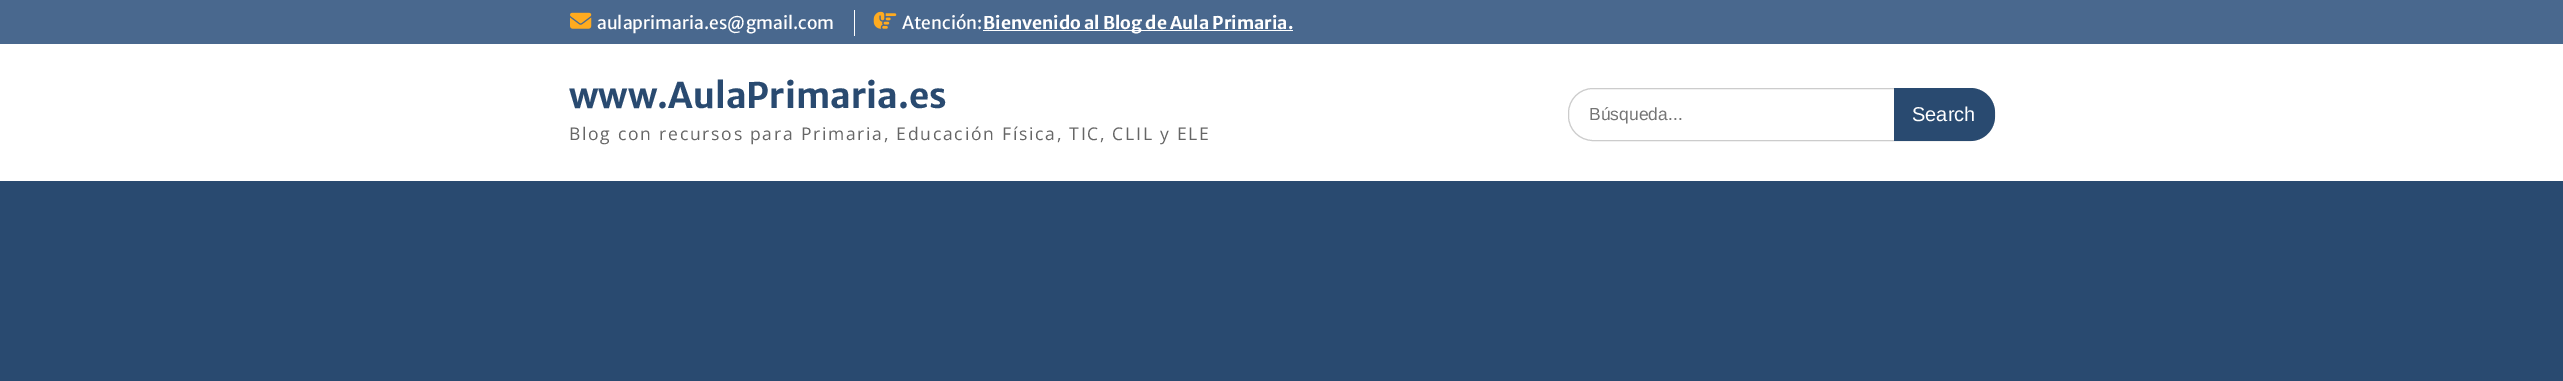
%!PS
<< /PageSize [2563 381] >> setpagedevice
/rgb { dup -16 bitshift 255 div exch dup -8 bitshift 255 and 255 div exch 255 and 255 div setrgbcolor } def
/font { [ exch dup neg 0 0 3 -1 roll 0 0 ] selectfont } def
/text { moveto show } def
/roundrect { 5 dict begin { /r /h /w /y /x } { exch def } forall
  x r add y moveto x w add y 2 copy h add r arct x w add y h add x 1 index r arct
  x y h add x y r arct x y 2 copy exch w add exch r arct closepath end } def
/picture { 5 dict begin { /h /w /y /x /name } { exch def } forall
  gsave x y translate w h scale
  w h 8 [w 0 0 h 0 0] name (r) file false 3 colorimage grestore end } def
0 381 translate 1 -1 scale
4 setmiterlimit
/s1 { /MerriweatherSans-Regular 17.5 font 16#FFFFFF rgb } def
/s2 { /MerriweatherSans-Bold 17.5 font 16#FFFFFF rgb } def
/s3 { /MerriweatherSans-Bold 35 font 16#294A70 rgb } def
/s4 { /LiberationSans-Regular 17.5 font 16#757575 rgb } def
/s5 { /LiberationSans-Regular 20 font 16#FFFFFF rgb } def
16#FFFFFF rgb
0 0 2563 381 rectfill
16#49688E rgb
0 0 2563 44 rectfill
(pic1.raw) 570 12 22 17 picture
s1
(aulaprimaria.es@gmail.com) 597 29 text
854 10 1 26 rectfill
(pic2.raw) 873 11 24 18 picture
(Atención:) 902 29 text
983 30 310 1 rectfill
s2
(Bienvenido al Blog de Aula Primaria.) 983 29 text
s3
(www.AulaPrimaria.es) 569 108 text
/OpenSans-Regular 17.5 font
16#666666 rgb
569 140 moveto 1.75 0 (Blog con recursos para Primaria, Educación Física, TIC, CLIL y ELE) ashow
16#CCCCCC rgb
1568.5 88.5 426 52 24.5 roundrect stroke
s4
(Búsqueda...) 1589 120 text
16#294A70 rgb
1894 88 moveto 1970 88 lineto 1984 88 1995 99 1995 113 curveto 1995 116 lineto 1995 130 1984 141 1970 141 curveto 1894 141 lineto closepath fill
s5
(Search) 1912 121 text
16#294A70 rgb
0 181 2563 200 rectfill
showpage
